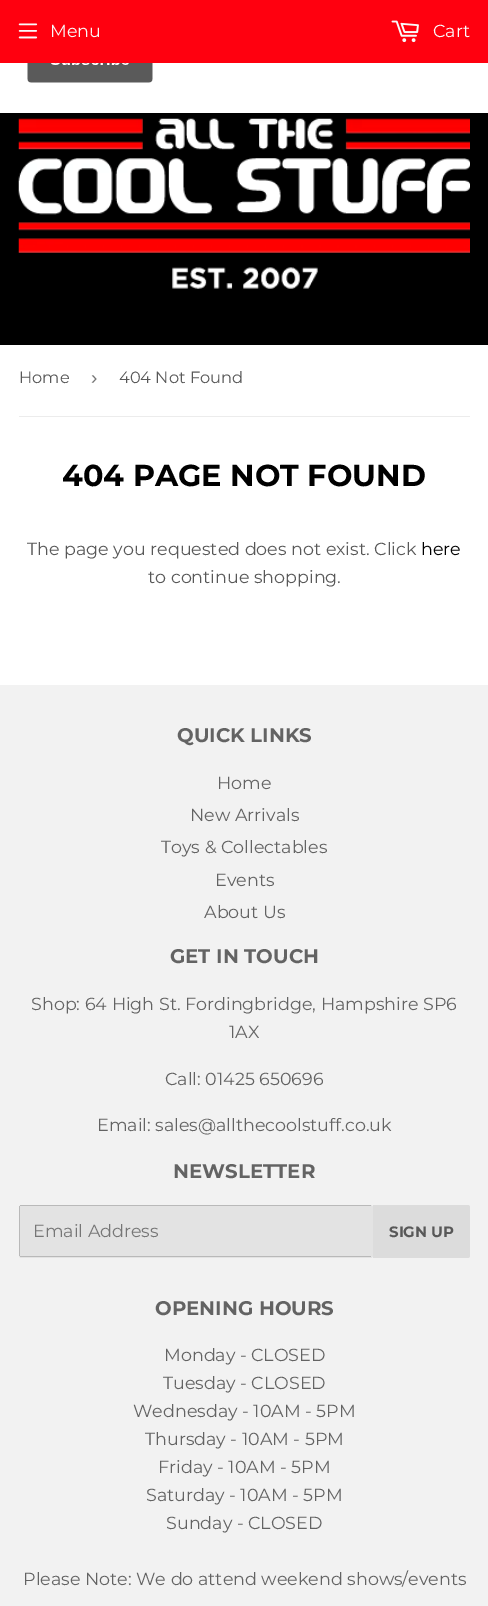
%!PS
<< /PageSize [488 1606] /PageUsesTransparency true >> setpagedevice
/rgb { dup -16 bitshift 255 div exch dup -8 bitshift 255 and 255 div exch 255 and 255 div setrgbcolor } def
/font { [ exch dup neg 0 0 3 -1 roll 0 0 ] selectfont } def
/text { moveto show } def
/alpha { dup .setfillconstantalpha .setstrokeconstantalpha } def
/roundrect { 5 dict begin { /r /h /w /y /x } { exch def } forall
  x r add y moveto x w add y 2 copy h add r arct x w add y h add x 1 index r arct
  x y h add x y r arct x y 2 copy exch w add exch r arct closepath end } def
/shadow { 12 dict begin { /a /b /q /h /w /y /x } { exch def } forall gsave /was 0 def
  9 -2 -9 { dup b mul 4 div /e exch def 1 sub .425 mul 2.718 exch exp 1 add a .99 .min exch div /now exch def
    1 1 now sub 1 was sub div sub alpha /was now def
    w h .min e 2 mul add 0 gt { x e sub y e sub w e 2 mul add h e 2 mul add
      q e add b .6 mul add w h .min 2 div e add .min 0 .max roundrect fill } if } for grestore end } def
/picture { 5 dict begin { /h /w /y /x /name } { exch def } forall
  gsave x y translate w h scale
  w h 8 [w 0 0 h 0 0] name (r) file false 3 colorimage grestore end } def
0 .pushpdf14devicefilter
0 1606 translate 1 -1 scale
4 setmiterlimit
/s1 { /Montserrat-Regular 17.5 font 16#FAFAFA rgb } def
/s2 { /Montserrat-Regular 16.25 font 16#585858 rgb } def
/s3 { /LiberationSans-Regular 19 font 16#767676 rgb } def
/s4 { /Montserrat-Bold 30.25 font 16#000000 rgb } def
/s5 { /Montserrat-Regular 17.5 font 16#585858 rgb } def
/s6 { /Montserrat-Regular 17.5 font 16#000000 rgb } def
/s7 { /Montserrat-Bold 19.75 font 16#636363 rgb } def
/s8 { /Montserrat-Regular 17.5 font 16#636363 rgb } def
/s9 { /Montserrat-Regular 17.5 font 16#767676 rgb } def
/s10 { /Montserrat-Bold 15 font 16#585858 rgb } def
16#FFFFFF rgb
0 0 488 1606 rectfill
16#000000 rgb
0 113 488 232 rectfill
(pic4.raw) 18 118 452 171 picture
0 4 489 112 0 4 0.2 shadow
16#FFFFFF rgb
0 63 488 50 rectfill
(pic1.raw) 27 63 126 20 picture
16#FF000F rgb
0 0 488 63 rectfill
(pic2.raw) 18 23 20 16 picture
s1
(Menu) 50 37 text
(pic3.raw) 391 20 28 23 picture
(Cart) 433 37 text
16#ECECEC rgb
19 416 451 1 rectfill
s2
(Home) 19 383 text
s3
(›) 91 384 text
s2
(404 Not Found) 119 383 text
s4
(404 PAGE NOT FOUND) 62 486 text
s5
(The page you requested does not exist. Click) 27 555 text
s6
(here) 421 555 text
s5
(to continue shopping.) 148 583 text
16#F2F2F2 rgb
0 685 488 921 rectfill
s7
(QUICK LINKS) 177 742 text
s8
(Home) 217 789 text
(New Arrivals) 190 821 text
(Toys & Collectables) 161 853 text
(Events) 215 886 text
(About Us) 204 918 text
s7
(GET IN TOUCH) 170 963 text
s8
(Shop: 64 High St. Fordingbridge, Hampshire SP6) 31 1010 text
(1AX) 229 1038 text
(Call: 01425 650696) 165 1085 text
(Email: sales@allthecoolstuff.co.uk) 97 1131 text
s7
(NEWSLETTER) 173 1178 text
16#E3E3E3 rgb
19 1205 354 53 2.5 roundrect fill
16#B9B9B9 rgb
20 1205 351 1 rectfill
20 1256 351 1 rectfill
19 1206 1 50 rectfill
s9
(Email Address) 33 1237 text
16#DCDCDC rgb
373 1205 moveto 467.5 1205 lineto 469 1205 470 1206 470 1207.5 curveto 470 1255.5 lineto 470 1257 469 1258 467.5 1258 curveto 373 1258 lineto closepath fill
s10
(SIGN UP) 389 1237 text
s7
(OPENING HOURS) 155 1315 text
s8
(Monday - CLOSED) 164 1361 text
(Tuesday - CLOSED) 163 1389 text
(Wednesday - 10AM - 5PM) 133 1417 text
(Thursday - 10AM - 5PM) 145 1445 text
(Friday - 10AM - 5PM) 158 1473 text
(Saturday - 10AM - 5PM) 146 1501 text
(Sunday - CLOSED) 166 1529 text
(Please Note: We do attend weekend shows/events) 23 1585 text
.poppdf14devicefilter showpage
